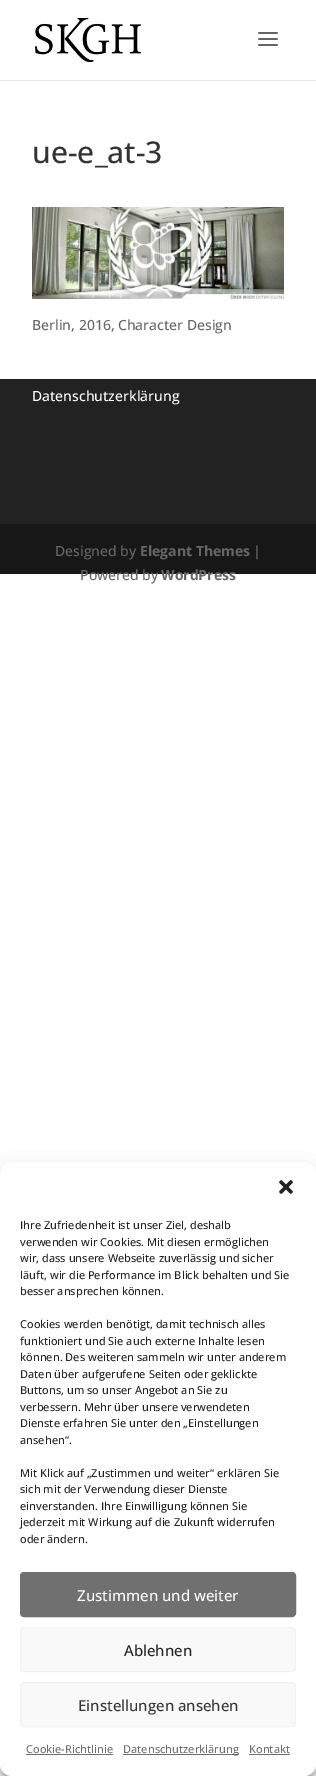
%!PS
<< /PageSize [316 1776] /PageUsesTransparency true >> setpagedevice
/rgb { dup -16 bitshift 255 div exch dup -8 bitshift 255 and 255 div exch 255 and 255 div setrgbcolor } def
/font { [ exch dup neg 0 0 3 -1 roll 0 0 ] selectfont } def
/text { moveto show } def
/alpha { dup .setfillconstantalpha .setstrokeconstantalpha } def
/roundrect { 5 dict begin { /r /h /w /y /x } { exch def } forall
  x r add y moveto x w add y 2 copy h add r arct x w add y h add x 1 index r arct
  x y h add x y r arct x y 2 copy exch w add exch r arct closepath end } def
/shadow { 12 dict begin { /a /b /q /h /w /y /x } { exch def } forall gsave /was 0 def
  9 -2 -9 { dup b mul 4 div /e exch def 1 sub .425 mul 2.718 exch exp 1 add a .99 .min exch div /now exch def
    1 1 now sub 1 was sub div sub alpha /was now def
    w h .min e 2 mul add 0 gt { x e sub y e sub w e 2 mul add h e 2 mul add
      q e add b .6 mul add w h .min 2 div e add .min 0 .max roundrect fill } if } for grestore end } def
/picture { 5 dict begin { /h /w /y /x /name } { exch def } forall
  gsave x y translate w h scale
  w h 8 [w 0 0 h 0 0] name (r) file false 3 colorimage grestore end } def
0 .pushpdf14devicefilter
0 1776 translate 1 -1 scale
4 setmiterlimit
/s1 { /OpenSans-Medium 30 font 16#333333 rgb } def
/s2 { /OpenSans-Medium 14 font 16#666666 rgb } def
/s3 { /OpenSans-Medium 14 font 16#FFFFFF rgb } def
/s4 { /OpenSans-Bold 14 font 16#666666 rgb } def
/s5 { /OpenSans-Medium 11 font 16#222222 rgb } def
/s6 { /OpenSans-Medium 15 font 16#FFFFFF rgb } def
/s7 { /OpenSans-Medium 15 font 16#222222 rgb } def
/s8 { /OpenSans-Medium 15 font 16#333333 rgb } def
/s9 { /OpenSans-Medium 11 font 16#707070 rgb } def
16#FFFFFF rgb
0 0 316 1776 rectfill
16#E6E6E6 rgb
0 80 316 1 rectfill
(pic1.raw) 35 18 106 44 picture
(pic2.raw) 258 32 20 14 picture
s1
(ue-e_at-3) 32 163 text
(pic3.raw) 32 207 252 92 picture
s2
(Berlin, 2016, Character Design) 32 330 text
16#222222 rgb
0 379 316 145 rectfill
s3
(Datenschutzerklärung) 32 401 text
16#171717 rgb
0 524 316 50 rectfill
s2
(Designed by) 55 556 text
s4
(Elegant Themes) 140 556 text
s2
(|) 253 556 text
(Powered by) 80 580 text
s4
(WordPress) 161 580 text
16#000000 rgb
0 1168 316 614 12 3 0.23 shadow
0 1172 316 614 12 10 0.19 shadow
16#FFFFFF rgb
0 1162 316 614 12 roundrect fill
(pic4.raw) 279 1180 14 14 picture
s5
(Ihre Zufriedenheit ist unser Ziel, deshalb) 20 1229 text
(verwenden wir Cookies. Mit diesen ermöglichen) 20 1246 text
(wir, dass unsere Webseite zuverlässig und sicher) 20 1262 text
(läuft, wir die Performance im Blick behalten und Sie) 20 1279 text
(besser ansprechen können.) 20 1295 text
(Cookies werden benötigt, damit technisch alles) 20 1328 text
(funktioniert und Sie auch externe Inhalte lesen) 20 1345 text
(können. Des weiteren sammeln wir unter anderem) 20 1361 text
(Daten über aufgerufene Seiten oder geklickte) 20 1378 text
(Buttons, um so unser Angebot an Sie zu) 20 1394 text
(verbessern. Mehr über unsere verwendeten) 20 1411 text
(Dienste erfahren Sie unter den „Einstellungen) 20 1427 text
(ansehen“.) 20 1444 text
(Mit Klick auf „Zustimmen und weiter“ erklären Sie) 20 1477 text
(sich mit der Verwendung dieser Dienste) 20 1493 text
(einverstanden. Ihre Einwilligung können Sie) 20 1510 text
(jederzeit mit Wirkung auf die Zukunft widerrufen) 20 1526 text
(oder ändern.) 20 1543 text
16#707070 rgb
20.5 1572.5 275 44 3.5 roundrect gsave fill grestore
stroke
s6
(Zustimmen und weiter) 77 1601 text
16#F9F9F9 rgb
20.5 1627.5 275 44 3.5 roundrect gsave fill grestore
16#F2F2F2 rgb
stroke
s7
(Ablehnen) 124 1656 text
16#F9F9F9 rgb
20.5 1682.5 275 44 3.5 roundrect gsave fill grestore
16#F2F2F2 rgb
stroke
s8
(Einstellungen ansehen) 78 1711 text
s9
(Cookie-Richtlinie) 26 1753 text
26 1754 87 1 rectfill
123 1754 116 1 rectfill
(Datenschutzerklärung) 123 1753 text
(Kontakt) 249 1753 text
249 1754 41 1 rectfill
.poppdf14devicefilter showpage
